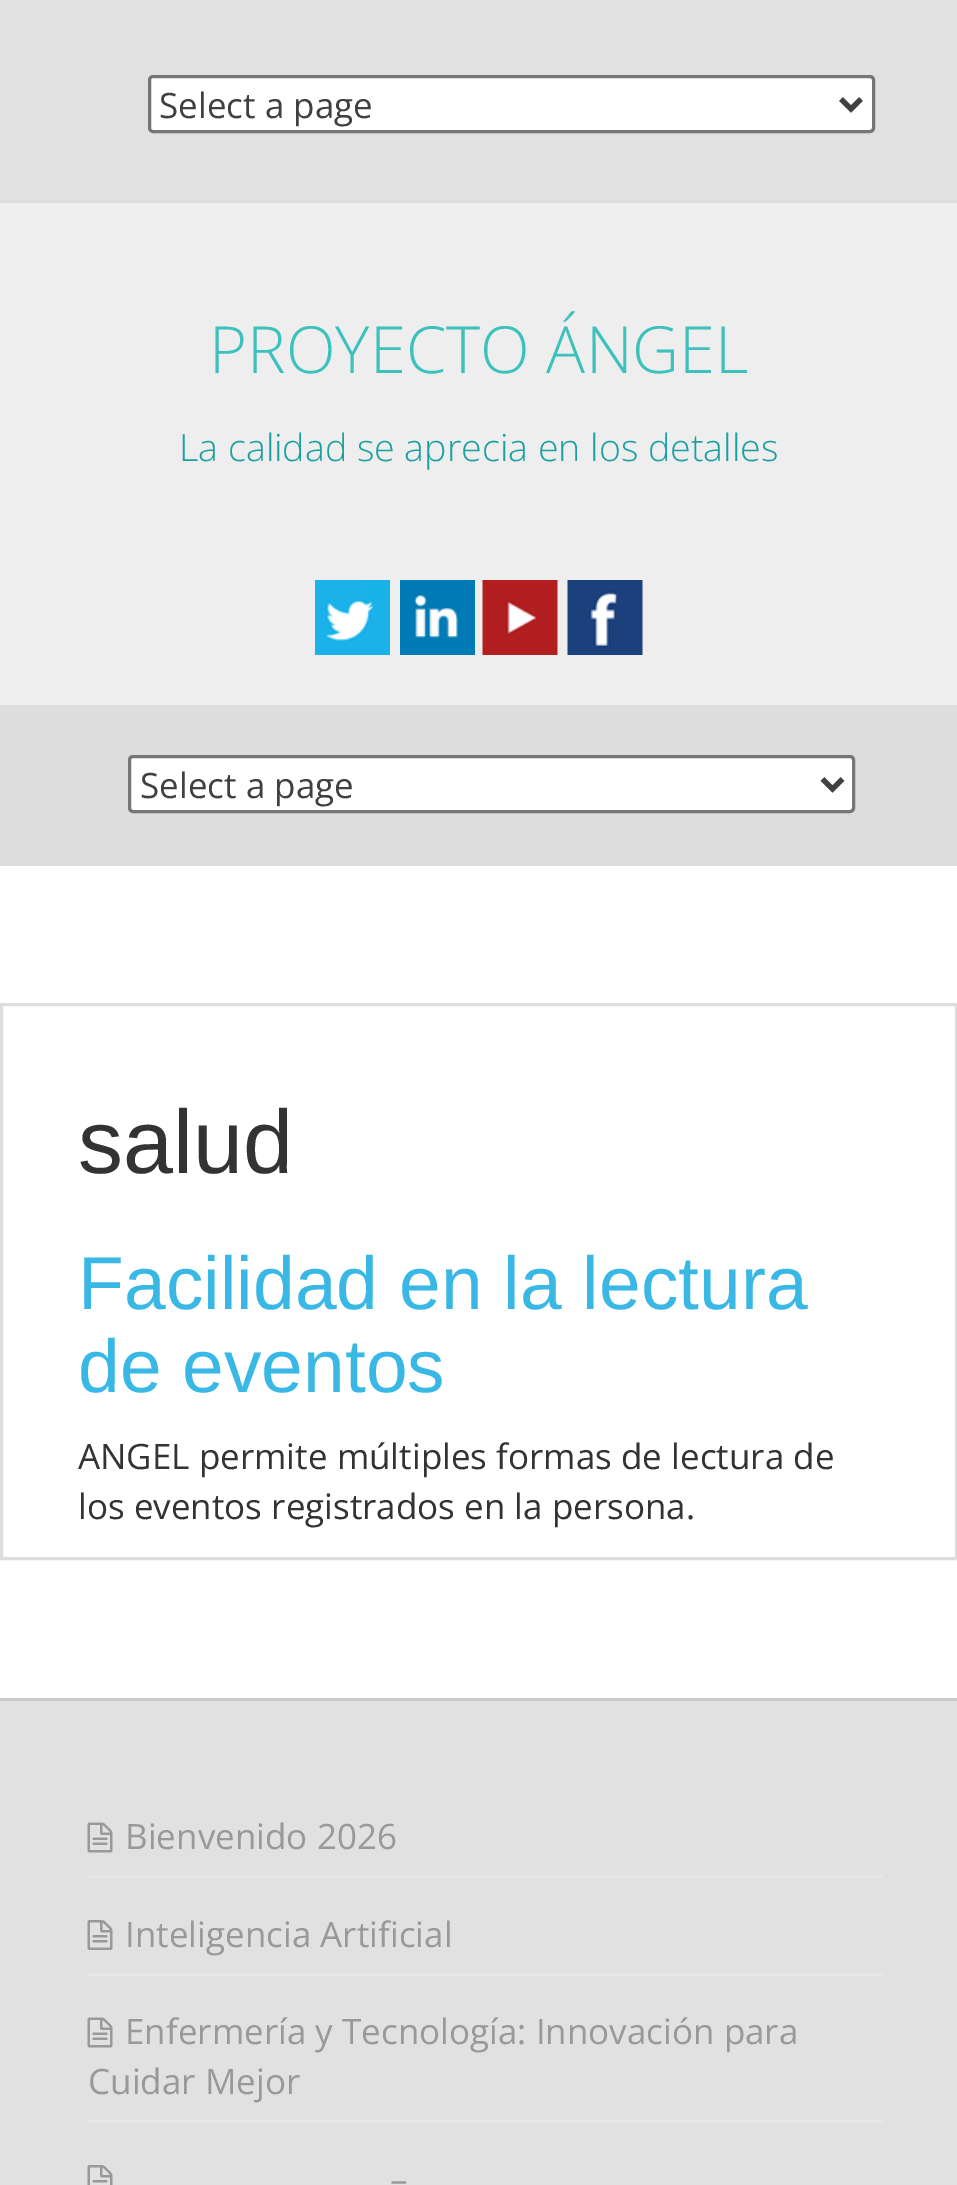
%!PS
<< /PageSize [957 2185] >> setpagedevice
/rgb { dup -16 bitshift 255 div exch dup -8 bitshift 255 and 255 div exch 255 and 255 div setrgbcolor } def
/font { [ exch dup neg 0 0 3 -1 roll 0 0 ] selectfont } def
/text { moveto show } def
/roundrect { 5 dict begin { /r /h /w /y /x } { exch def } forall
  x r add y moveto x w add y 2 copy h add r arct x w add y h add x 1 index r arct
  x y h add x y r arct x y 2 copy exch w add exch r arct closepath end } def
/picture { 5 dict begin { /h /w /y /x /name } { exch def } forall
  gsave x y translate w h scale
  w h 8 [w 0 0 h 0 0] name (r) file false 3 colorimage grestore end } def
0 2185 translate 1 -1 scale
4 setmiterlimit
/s1 { /OpenSans-Regular 35 font 16#404040 rgb } def
/s2 { /OpenSans-Light 65 font 16#3CC1BD rgb } def
/s3 { /OpenSans-Light 37.5 font 16#19A0A0 rgb } def
/s4 { /LiberationSans-Regular 90 font 16#333333 rgb } def
/s5 { /LiberationSans-Regular 75 font 16#39B7E5 rgb } def
/s6 { /OpenSans-Regular 35 font 16#333333 rgb } def
/s7 { /OpenSans-Regular 35 font 16#999999 rgb } def
16#FFFFFF rgb
0 0 957 2185 rectfill
16#E1E1E1 rgb
0 0 957 200 rectfill
16#DDDDDD rgb
0 200 957 3 rectfill
16#FFFFFF rgb
149.5 76.5 724 55 3.5 roundrect gsave fill grestore
16#767676 rgb
3 setlinewidth
stroke
16#404040 rgb
5 setlinewidth
841 99 moveto 851 109 lineto 861 99 lineto stroke
s1
(Select a page) 159 118 text
16#EEEEEE rgb
0 203 957 502 rectfill
s2
(PROYECTO ÁNGEL) 209 373 text
s3
(La calidad se aprecia en los detalles) 179 461 text
(pic1.raw) 315 580 75 75 picture
(pic2.raw) 400 580 75 75 picture
(pic3.raw) 482 580 76 75 picture
(pic4.raw) 567 580 76 75 picture
16#DDDDDD rgb
0 705 957 161 rectfill
16#FFFFFF rgb
129.5 756.5 724 55 3.5 roundrect gsave fill grestore
16#767676 rgb
3 setlinewidth
stroke
16#404040 rgb
5 setlinewidth
822.5 779 moveto 832.5 789 lineto 842.5 779 lineto stroke
s1
(Select a page) 140 798 text
16#DDDDDD rgb
3 setlinewidth
1.5 1004.5 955 554 rectstroke
s4
(salud) 78 1173 text
s5
(Facilidad en la lectura) 78 1309 text
(de eventos) 78 1392 text
s6
(ANGEL permite múltiples formas de lectura de) 78 1469 text
(los eventos registrados en la persona.) 78 1519 text
16#E1E1E1 rgb
0 1701 957 484 rectfill
16#C8C8C8 rgb
0 1698 957 3 rectfill
16#E6E6E6 rgb
88 1875 795 3 rectfill
(pic5.raw) 87 1822 26 31 picture
s7
(Bienvenido 2026) 125 1849 text
16#E6E6E6 rgb
88 1973 795 3 rectfill
(pic6.raw) 87 1920 26 30 picture
s7
(Inteligencia Artificial) 125 1947 text
16#E6E6E6 rgb
88 2120 795 3 rectfill
(pic5.raw) 87 2017 26 31 picture
s7
(Enfermería y Tecnología: Innovación para) 125 2044 text
(Cuidar Mejor) 88 2094 text
(pic7.raw) 87 2165 26 20 picture
(–) 390 2192 text
showpage
